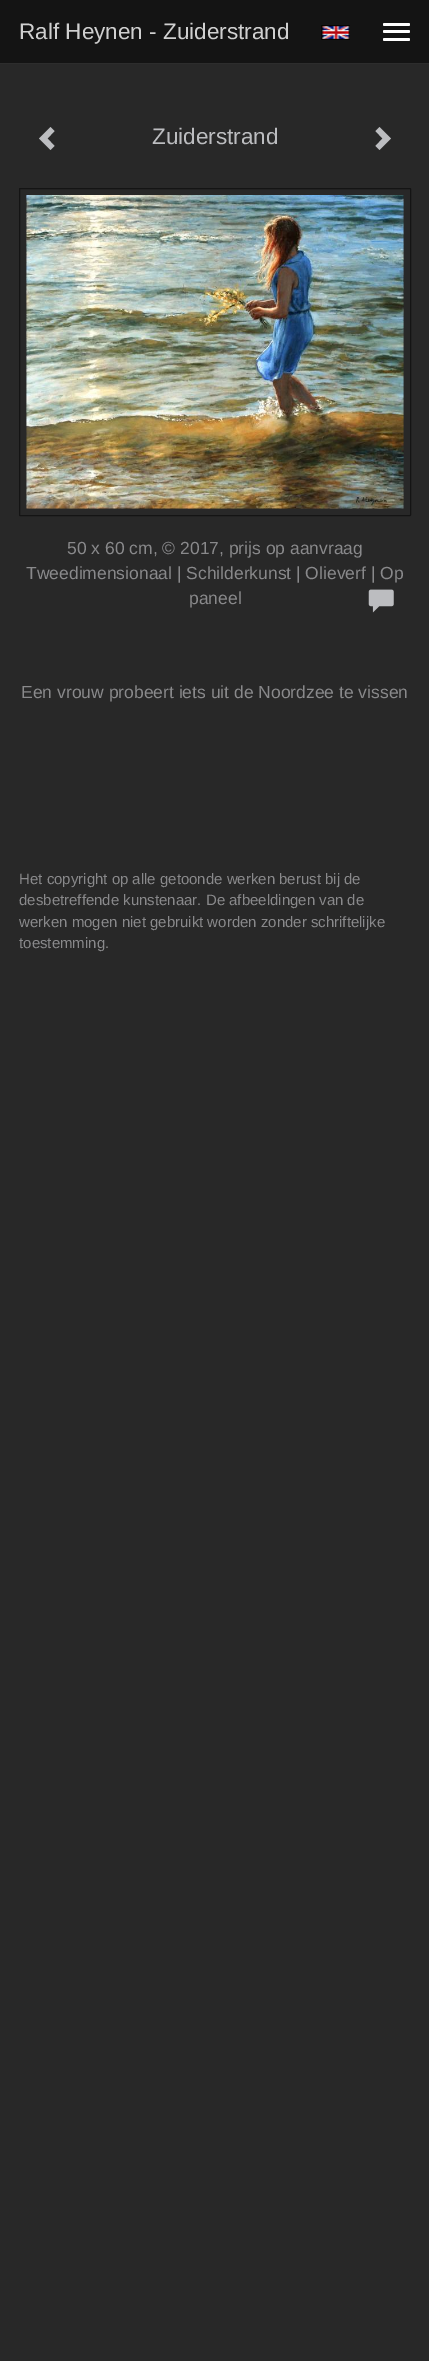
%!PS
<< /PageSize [429 2361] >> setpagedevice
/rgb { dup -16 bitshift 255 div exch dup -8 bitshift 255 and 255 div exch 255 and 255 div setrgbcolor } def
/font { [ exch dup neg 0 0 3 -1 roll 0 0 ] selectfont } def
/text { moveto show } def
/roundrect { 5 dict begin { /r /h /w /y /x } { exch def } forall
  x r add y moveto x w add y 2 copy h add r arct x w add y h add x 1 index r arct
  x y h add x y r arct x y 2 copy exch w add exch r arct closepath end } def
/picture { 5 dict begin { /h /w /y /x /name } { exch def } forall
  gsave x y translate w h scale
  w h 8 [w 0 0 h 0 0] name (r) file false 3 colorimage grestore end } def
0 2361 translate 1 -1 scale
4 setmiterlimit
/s1 { /LiberationSans-Regular 22.5 font 16#D0D0D0 rgb } def
/s2 { /LiberationSans-Regular 22.5 font 16#BCBDC0 rgb } def
/s3 { /LiberationSans-Regular 17.5 font 16#89898B rgb } def
/s4 { /LiberationSans-Regular 15 font 16#89898B rgb } def
16#282828 rgb
0 0 429 2361 rectfill
16#141414 rgb
0 0 429 63 rectfill
16#2D2D2D rgb
0 63 429 1 rectfill
s1
(Ralf Heynen - Zuiderstrand) 19 39 text
16#FFFFFF rgb
383 23 27 3 1.5 roundrect fill
383 30 27 3 1.5 roundrect fill
383 38 27 3 1.5 roundrect fill
(pic1.raw) 321 25 29 15 picture
16#BCBDC0 rgb
54.5 131 moveto 47.5 138.5 lineto 54.5 146 lineto 50.5 150 lineto 39 138.5 lineto 50.5 127 lineto closepath fill
(Zuiderstrand) 152 144 text
391 138.5 moveto 379.5 150 lineto 375.5 146 lineto 382.5 138.5 lineto 375.5 131 lineto 379.5 127 lineto closepath fill
16#141414 rgb
19.5 188.5 391 327 0.5 roundrect stroke
(pic2.raw) 26 195 378 314 picture
s3
(50 x 60 cm, © 2017, prijs op aanvraag) 67 554 text
(Tweedimensionaal | Schilderkunst | Olieverf | Op) 26 579 text
(paneel) 189 604 text
(pic3.raw) 368 589 26 24 picture
(Een vrouw probeert iets uit de Noordzee te vissen) 21 698 text
s4
(Het copyright op alle getoonde werken berust bij de) 19 884 text
(desbetreffende kunstenaar. De afbeeldingen van de) 19 905 text
(werken mogen niet gebruikt worden zonder schriftelijke) 19 927 text
(toestemming.) 19 948 text
showpage
